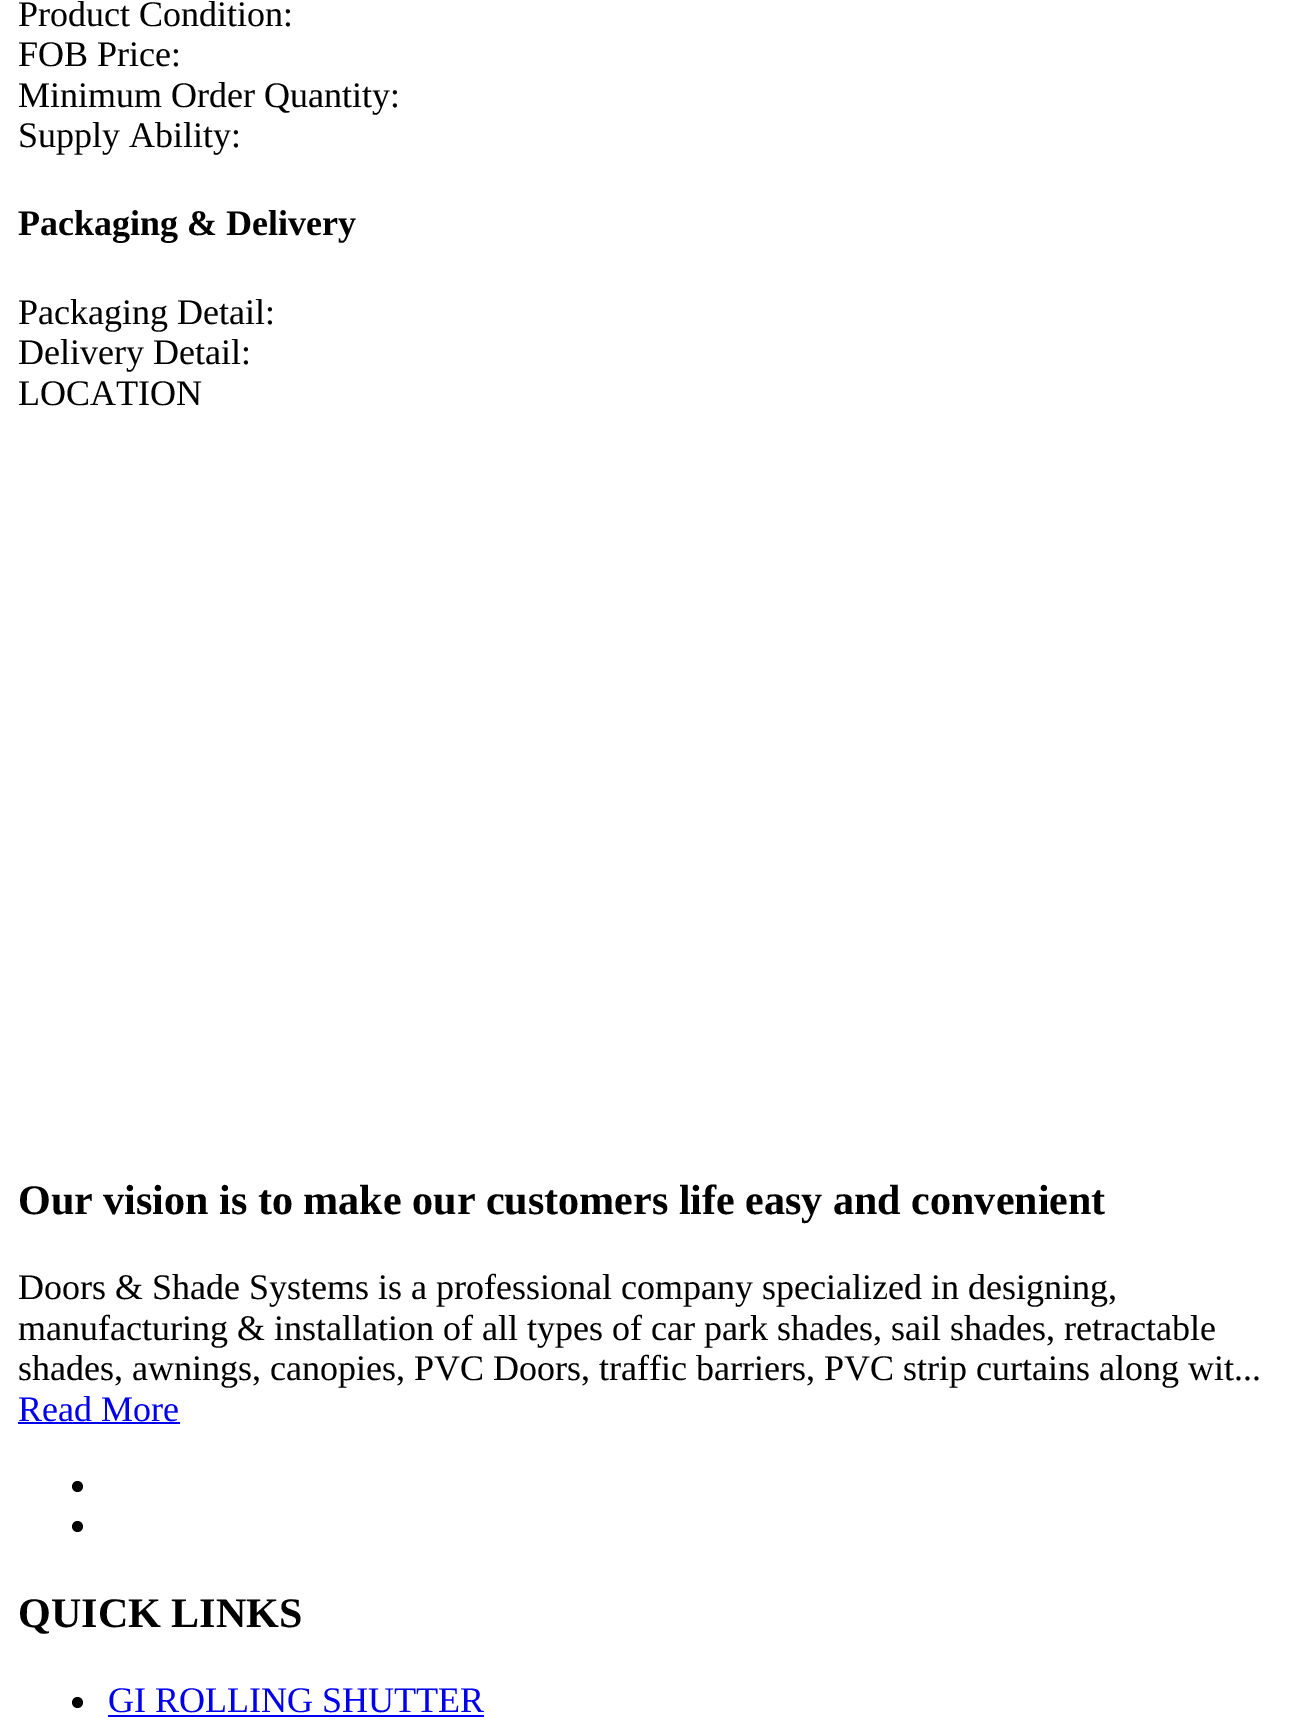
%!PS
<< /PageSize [1293 1729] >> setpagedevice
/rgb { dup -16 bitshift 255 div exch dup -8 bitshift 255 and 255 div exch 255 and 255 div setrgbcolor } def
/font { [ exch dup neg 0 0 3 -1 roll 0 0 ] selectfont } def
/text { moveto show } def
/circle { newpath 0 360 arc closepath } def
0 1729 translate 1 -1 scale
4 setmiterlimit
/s1 { /LiberationSerif-Regular 36 font 16#000000 rgb } def
/s2 { /LiberationSerif-Bold 36 font 16#000000 rgb } def
/s3 { /LiberationSerif-Bold 42.1 font 16#000000 rgb } def
/s4 { /LiberationSerif-Regular 36 font 16#0000EE rgb } def
16#FFFFFF rgb
0 0 1293 1729 rectfill
s1
(Product Condition:) 18 26 text
(FOB Price:) 18 66 text
(Minimum Order Quantity:) 18 107 text
(Supply Ability:) 18 147 text
s2
(Packaging & Delivery) 18 235 text
s1
(Packaging Detail:) 18 324 text
(Delivery Detail:) 18 364 text
(LOCATION) 18 405 text
s3
(Our vision is to make our customers life easy and convenient) 18 1214 text
s1
(Doors & Shade Systems is a professional company specialized in designing,) 18 1299 text
(manufacturing & installation of all types of car park shades, sail shades, retractable) 18 1340 text
(shades, awnings, canopies, PVC Doors, traffic barriers, PVC strip curtains along wit...) 18 1380 text
s4
(Read More) 18 1421 text
18 1422 162 2 rectfill
16#000000 rgb
77.5 1486.5 5.5 circle fill
77.5 1526.5 5.5 circle fill
s3
(QUICK LINKS) 18 1627 text
77.5 1702.5 5.5 circle fill
s4
(GI ROLLING SHUTTER) 108 1712 text
108 1715 376 2 rectfill
showpage
